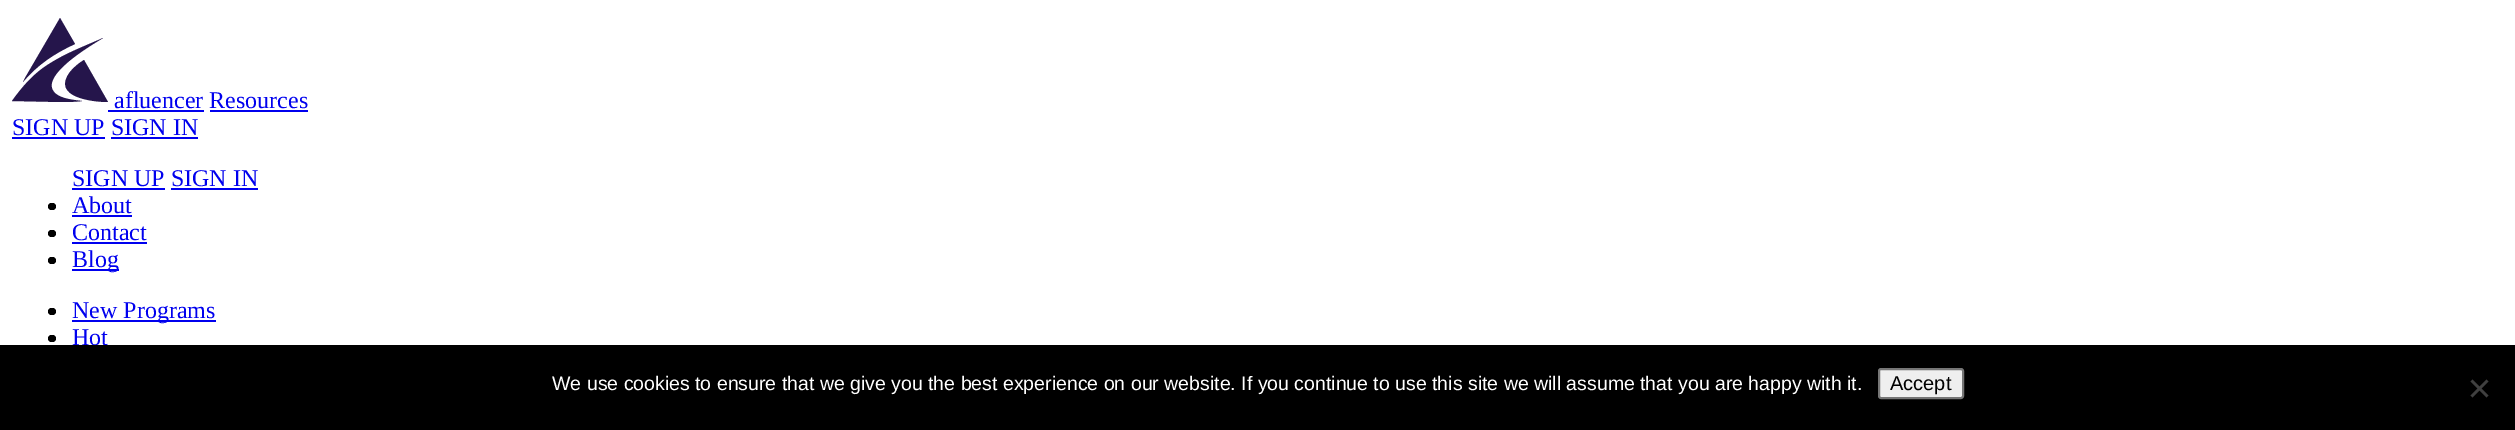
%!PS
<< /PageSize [2515 430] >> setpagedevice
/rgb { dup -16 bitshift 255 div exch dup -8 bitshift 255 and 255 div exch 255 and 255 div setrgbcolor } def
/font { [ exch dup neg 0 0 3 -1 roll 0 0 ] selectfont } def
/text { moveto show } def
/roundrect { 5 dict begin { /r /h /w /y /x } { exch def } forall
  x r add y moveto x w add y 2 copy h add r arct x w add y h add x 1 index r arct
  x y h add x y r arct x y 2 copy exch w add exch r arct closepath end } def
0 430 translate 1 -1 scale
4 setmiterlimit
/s1 { /LiberationSerif-Regular 24 font 16#0000EE rgb } def
/s2 { /LiberationSans-Regular 19.5 font 16#FFFFFF rgb } def
/s3 { /LiberationSans-Regular 20 font 16#000000 rgb } def
16#FFFFFF rgb
0 0 2515 430 rectfill
s1
(afluencer Resources) 114 108 text
108 110 96 2 rectfill
16#25154B rgb
25 78 moveto 60 18 lineto 75 44 lineto 55 53 37 65 23 82 curveto closepath fill
70 72 moveto 74 67 79 63 84 60 curveto 108 102 lineto 92 102 51 97 70 72 curveto closepath fill
49 64 moveto 66 53 85 46 103 38 curveto 95 43 37 76 55 93 curveto 61 99 74 100 82 101 curveto 75 102 67 102 60 102 curveto 12 101 lineto 22 87 34 73 49 64 curveto closepath fill
16#0000EE rgb
210 110 98 2 rectfill
(SIGN UP SIGN IN) 12 135 text
12 137 93 2 rectfill
111 137 87 2 rectfill
(SIGN UP SIGN IN) 72 186 text
72 188 93 2 rectfill
171 188 87 2 rectfill
16#000000 rgb
48 203 8 7 3.5 roundrect fill
s1
(About) 72 213 text
72 215 60 2 rectfill
16#000000 rgb
48 230 8 7 3.5 roundrect fill
s1
(Contact) 72 240 text
72 242 75 2 rectfill
16#000000 rgb
48 257 8 7 3.5 roundrect fill
16#0000EE rgb
72 269 47 2 rectfill
(Blog) 72 267 text
16#000000 rgb
48 308 8 7 3.5 roundrect fill
16#0000EE rgb
72 320 144 2 rectfill
(New Programs) 72 318 text
16#000000 rgb
48 335 8 7 3.5 roundrect fill
s1
(Hot) 72 345 text
16#000000 rgb
0 345 2515 85 rectfill
s2
(We use cookies to ensure that we give you the best experience on our website. If you continue to use this site we will assume that you are happy with it.) 552 390 text
16#EFEFEF rgb
1879 369 84 29 2 roundrect gsave fill grestore
16#767676 rgb
2 setlinewidth
stroke
s3
(Accept) 1890 390 text
16#404040 rgb
2486.5 379.5 moveto 2488.5 381.5 lineto 2472.5 397.5 lineto 2470.5 395.5 lineto closepath fill
2470.5 381.5 moveto 2472.5 379.5 lineto 2488.5 395.5 lineto 2486.5 397.5 lineto closepath fill
showpage
